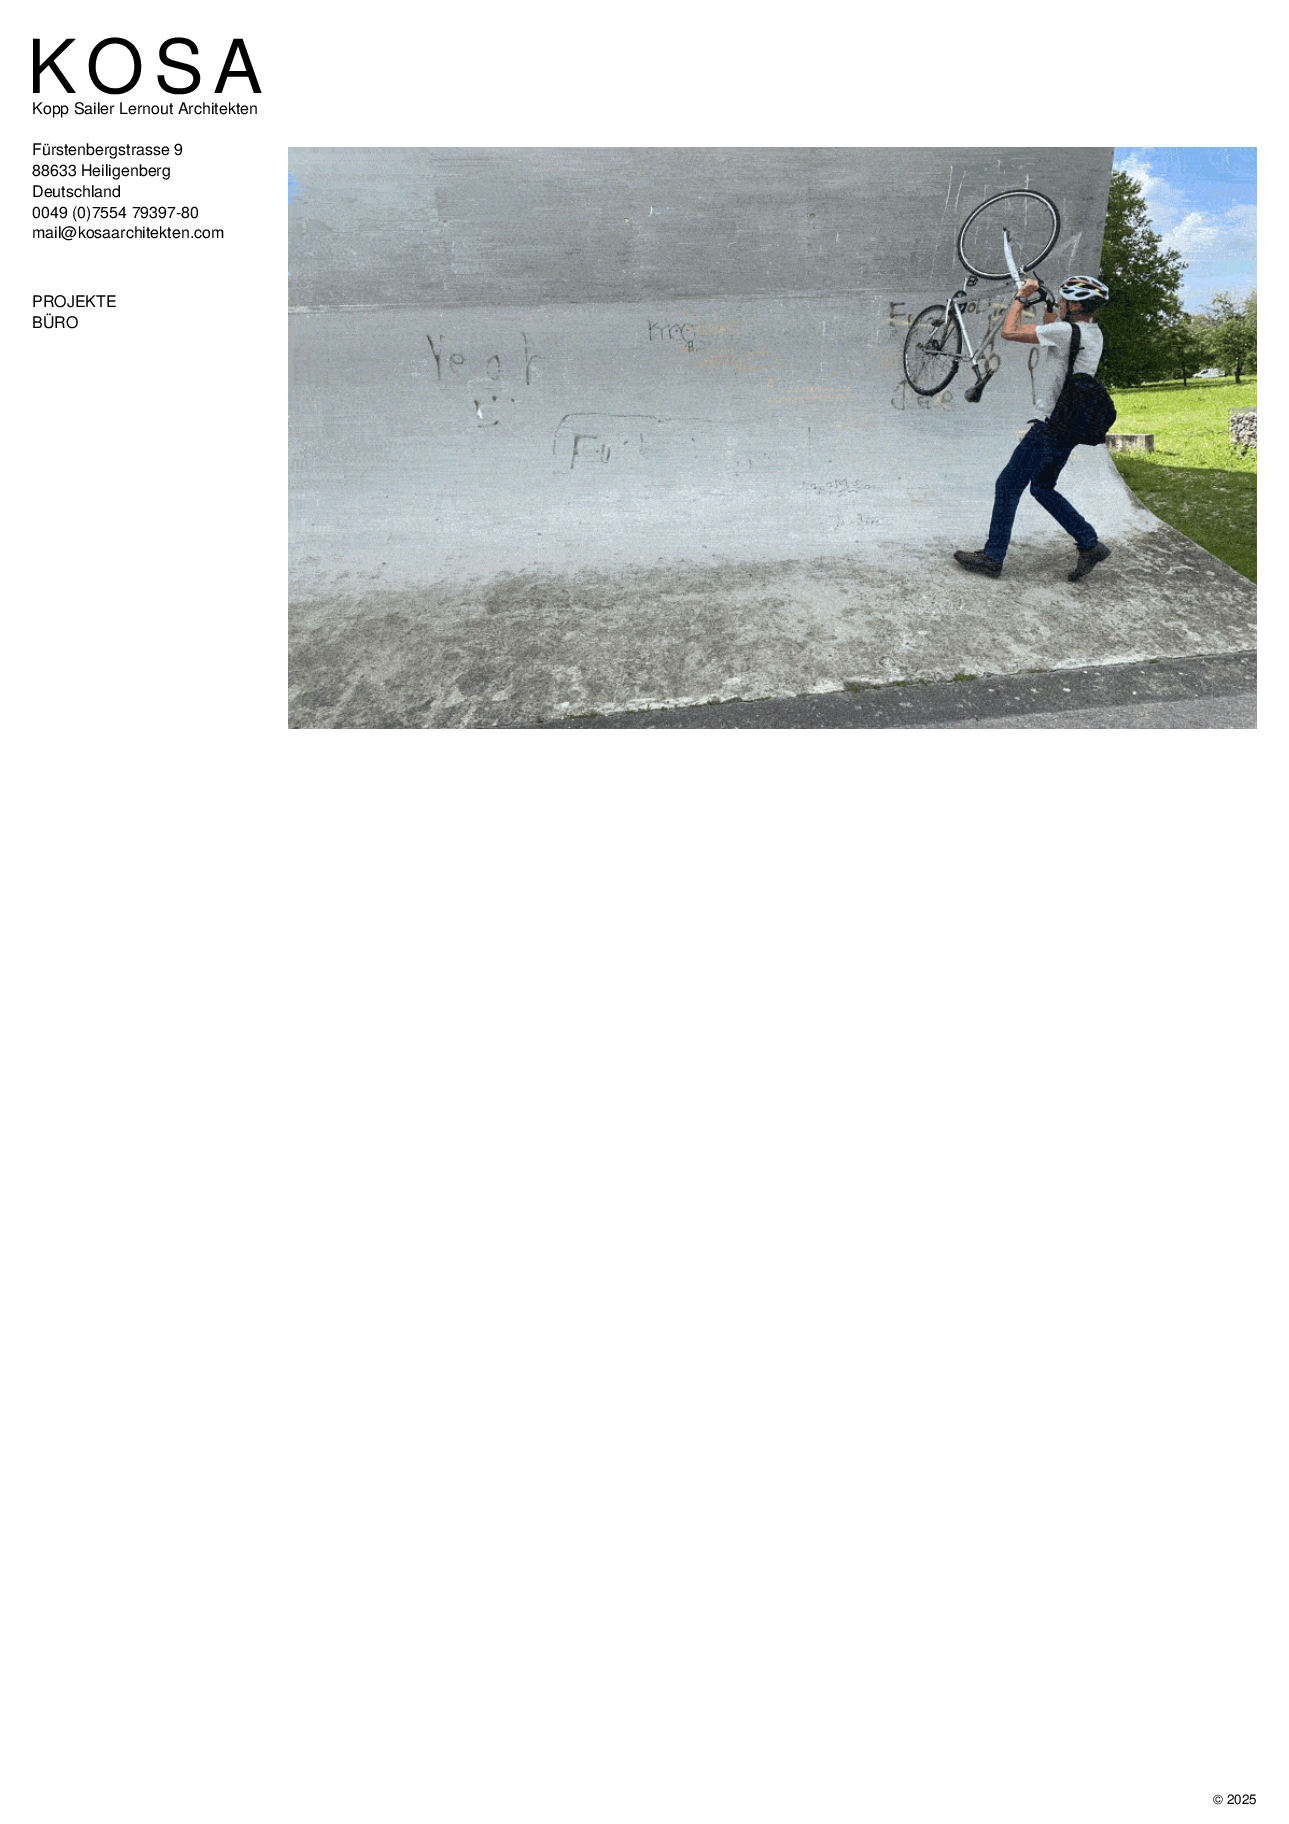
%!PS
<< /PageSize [1289 1824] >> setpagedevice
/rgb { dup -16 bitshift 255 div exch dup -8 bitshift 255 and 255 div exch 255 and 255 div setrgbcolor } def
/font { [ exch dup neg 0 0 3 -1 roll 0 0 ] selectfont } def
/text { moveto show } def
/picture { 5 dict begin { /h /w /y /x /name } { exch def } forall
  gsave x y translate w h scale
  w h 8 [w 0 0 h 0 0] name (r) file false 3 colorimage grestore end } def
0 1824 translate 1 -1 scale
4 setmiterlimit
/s1 { /TeXGyreHeros-Regular 16 font 16#000000 rgb } def
/s2 { /TeXGyreHeros-Regular 13.5 font 16#000000 rgb } def
16#FFFFFF rgb
0 0 1289 1824 rectfill
/TeXGyreHeros-Regular 74.5 font
16#000000 rgb
27 93 moveto 9.5 0 (KOSA) ashow
s1
(Kopp Sailer Lernout Architekten) 32 114 text
(Fürstenbergstrasse 9) 32 155 text
(88633 Heiligenberg) 32 176 text
(Deutschland) 32 197 text
(0049 \(0\)7554 79397-80) 32 218 text
(mail@kosaarchitekten.com) 32 238 text
(PROJEKTE) 32 307 text
(BÜRO) 32 328 text
(pic1.raw) 288 147 969 582 picture
s2
(© 2025) 1213 1804 text
showpage
